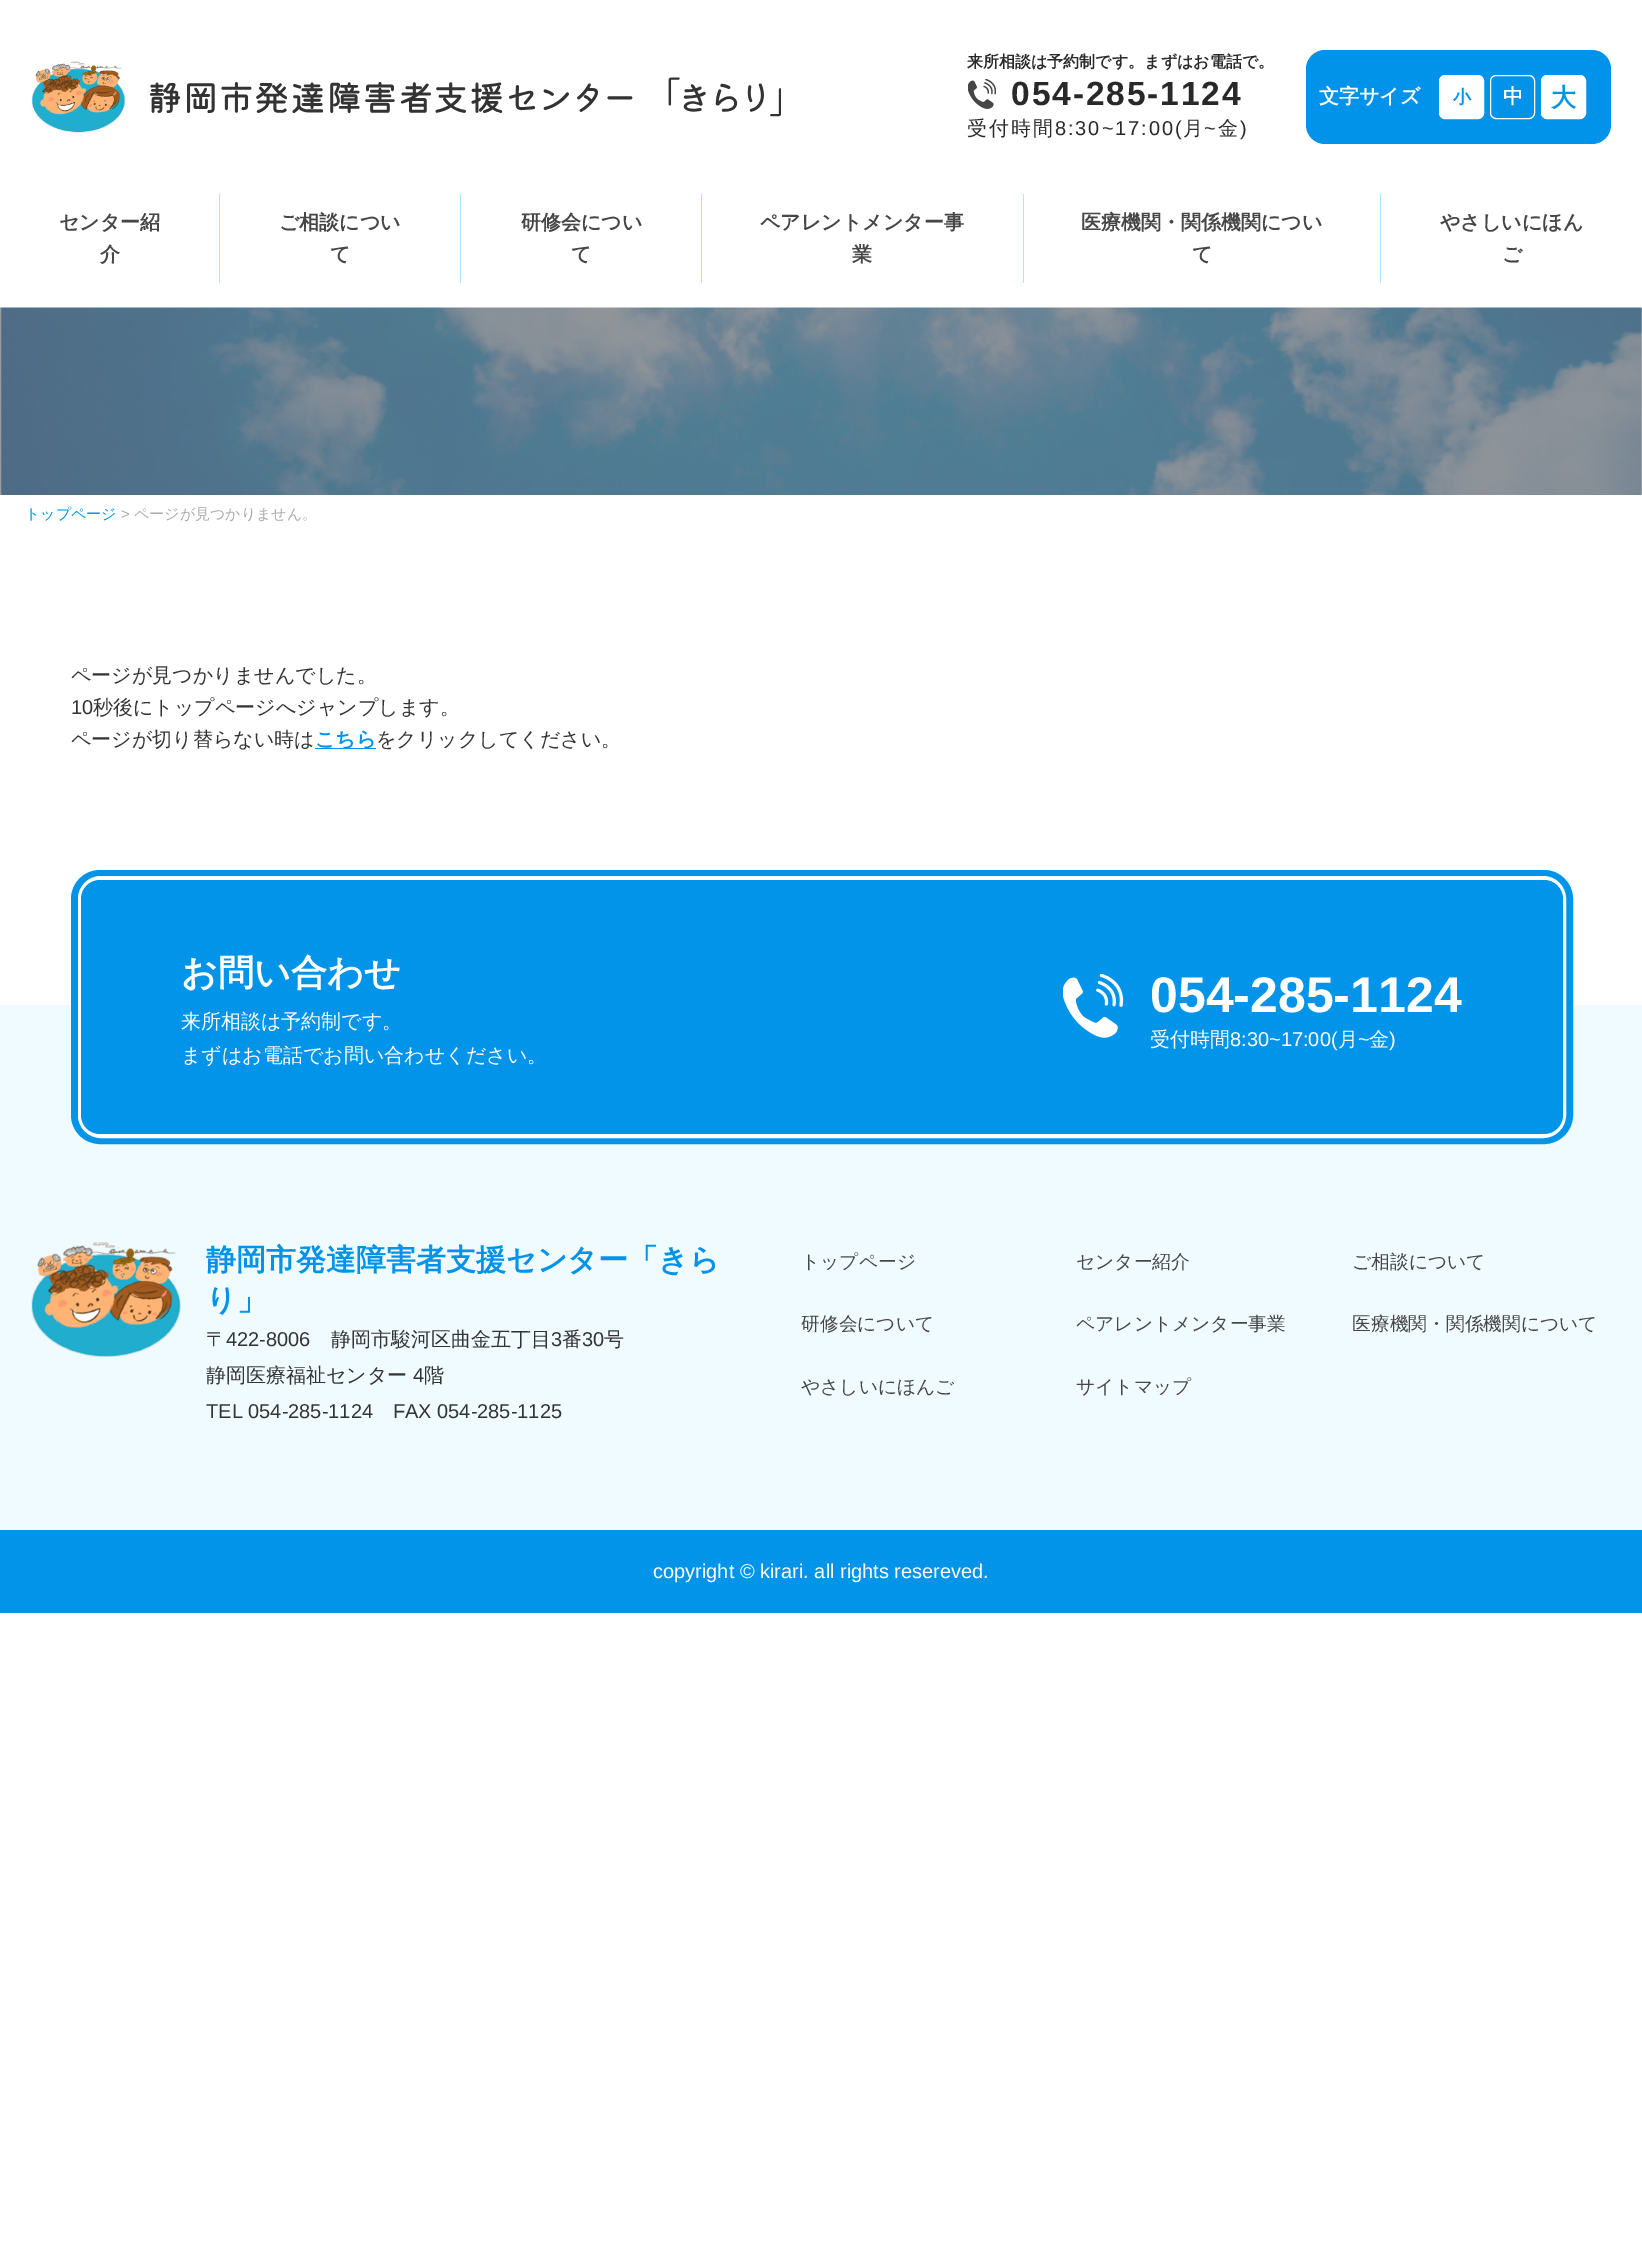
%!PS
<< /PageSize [1642 2268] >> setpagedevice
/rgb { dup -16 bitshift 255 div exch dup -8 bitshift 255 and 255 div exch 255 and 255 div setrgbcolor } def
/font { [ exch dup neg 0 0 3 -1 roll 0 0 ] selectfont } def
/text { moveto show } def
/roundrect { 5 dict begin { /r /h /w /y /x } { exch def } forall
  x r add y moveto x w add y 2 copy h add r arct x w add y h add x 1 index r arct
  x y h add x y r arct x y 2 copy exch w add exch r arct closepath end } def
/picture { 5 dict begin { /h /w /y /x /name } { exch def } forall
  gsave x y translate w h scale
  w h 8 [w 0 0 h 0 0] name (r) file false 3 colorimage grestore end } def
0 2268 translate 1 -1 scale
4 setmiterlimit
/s1 { /WenQuanYiZenHei-Bold 16 font 16#292929 rgb } def
/s2 { /WenQuanYiZenHei-Bold 20 font 16#FFFFFF rgb } def
/s3 { /WenQuanYiZenHei-Bold 18 font 16#0093E9 rgb } def
/s4 { /WenQuanYiZenHei-Bold 25 font 16#0093E9 rgb } def
/s5 { /WenQuanYiZenHei-Bold 20 font 16#464646 rgb } def
/s6 { /WenQuanYiZenHei-Medium 15 font 16#0093E9 rgb } def
/s7 { /LiberationSans-Regular 15 font 16#AAAAAA rgb } def
/s8 { /WenQuanYiZenHei-Medium 15 font 16#AAAAAA rgb } def
/s9 { /WenQuanYiZenHei-Medium 20 font 16#333333 rgb } def
/s10 { /LiberationSans-Regular 20 font 16#333333 rgb } def
/s11 { /WenQuanYiZenHei-Bold 20 font 16#0093E9 rgb } def
/s12 { /WenQuanYiZenHei-Bold 36 font 16#FFFFFF rgb } def
/s13 { /WenQuanYiZenHei-Medium 20 font 16#FFFFFF rgb } def
/s14 { /LiberationSans-Bold 50 font 16#FFFFFF rgb } def
/s15 { /LiberationSans-Regular 20 font 16#FFFFFF rgb } def
/s16 { /WenQuanYiZenHei-Bold 30 font 16#0093E9 rgb } def
/s17 { /WenQuanYiZenHei-Medium 18.75 font 16#464646 rgb } def
16#FFFFFF rgb
0 0 1642 2268 rectfill
(pic1.raw) 32 61 93 72 picture
(pic2.raw) 150 77 631 40 picture
s1
(来所相談は予約制です。まずはお電話で。) 967 67 text
(pic3.raw) 968 79 28 30 picture
/LiberationSans-Bold 33.5 font
1011 105 moveto 1.9 0 (054-285-1124) ashow
/WenQuanYiZenHei-Medium 20 font
967 135 moveto 1.9 0 (受付時間) ashow
/LiberationSans-Regular 20 font
1055 135 moveto 1.9 0 (8:30~17:00\() ashow
/WenQuanYiZenHei-Medium 20 font
1183 135 moveto 1.9 0 (月) ashow
/LiberationSans-Regular 20 font
1204 135 moveto 1.9 0 (~) ashow
/WenQuanYiZenHei-Medium 20 font
1218 135 moveto 1.9 0 (金) ashow
/LiberationSans-Regular 20 font
1240 135 moveto 1.9 0 (\)) ashow
16#0093E9 rgb
1306 50 305 94 19 roundrect fill
s2
(文字サイズ) 1319 103 text
1439.5 75.5 44 43 5.5 roundrect gsave fill grestore
stroke
s3
(小) 1453 103 text
16#FFFFFF rgb
1490.5 75.5 44 43 5.5 roundrect stroke
s2
(中) 1503 103 text
1541.5 75.5 44 43 5.5 roundrect gsave fill grestore
stroke
s4
(大) 1551 106 text
16#B0E5FF rgb
219 194 1 89 rectfill
s5
(センター紹) 59 229 text
(介) 100 261 text
16#B0E5FF rgb
460 194 1 89 rectfill
s5
(ご相談につい) 279 229 text
(て) 330 261 text
16#B0E5FF rgb
701 194 1 89 rectfill
s5
(研修会につい) 521 229 text
(て) 571 261 text
16#B0E5FF rgb
1023 194 1 89 rectfill
s5
(ペアレントメンター事) 760 229 text
(業) 852 261 text
16#B0E5FF rgb
1380 194 1 89 rectfill
s5
(医療機関・関係機関につい) 1081 229 text
(て) 1192 261 text
(やさしいにほん) 1440 229 text
(ご) 1502 261 text
(pic4.raw) 0 307 1642 188 picture
s6
(トップページ) 25 519 text
s7
(>) 121 519 text
s8
(ページが見つかりません。) 134 519 text
s9
(ページが見つかりませんでした。) 71 682 text
s10
(10) 71 714 text
s9
(秒後にトップページへジャンプします。) 93 714 text
(ページが切り替らない時は) 71 746 text
16#0093E9 rgb
315 748 61 1 rectfill
s11
(こちら) 315 746 text
s9
(をクリックしてください。) 376 746 text
16#F0FBFF rgb
0 1005 1642 525 rectfill
16#0294E8 rgb
10 setlinewidth
76 875 1492 264 24 roundrect stroke
16#FFFFFF rgb
4 setlinewidth
80 878 1484 258 21 roundrect stroke
16#0294E8 rgb
81 880 1482 254 19 roundrect fill
s12
(お問い合わせ) 181 985 text
s13
(来所相談は予約制です。) 181 1028 text
(まずはお電話でお問い合わせください。) 181 1062 text
(pic5.raw) 1063 974 61 64 picture
s14
(054-285-1124) 1150 1012 text
s13
(受付時間) 1150 1046 text
s15
(8:30~17:00\() 1230 1046 text
s13
(月) 1338 1046 text
s15
(~) 1358 1046 text
s13
(金) 1369 1046 text
s15
(\)) 1389 1046 text
(pic6.raw) 31 1242 150 115 picture
s16
(静岡市発達障害者支援センター「きら) 206 1270 text
(り」) 206 1310 text
s9
(〒) 206 1346 text
s10
(422-8006) 226 1346 text
s9
(静岡市駿河区曲金五丁目) 331 1346 text
s10
(3) 551 1346 text
s9
(番) 562 1346 text
s10
(30) 582 1346 text
s9
(号) 604 1346 text
(静岡医療福祉センター) 206 1382 text
s10
(4) 413 1382 text
s9
(階) 424 1382 text
s10
(TEL 054-285-1124 FAX 054-285-1125) 206 1418 text
s17
(トップページ) 801 1268 text
(センター紹介) 1076 1268 text
(ご相談について) 1352 1268 text
(研修会について) 801 1330 text
(ペアレントメンター事業) 1076 1330 text
(医療機関・関係機関について) 1352 1330 text
(やさしいにほんご) 801 1393 text
(サイトマップ) 1076 1393 text
16#0294E8 rgb
0 1530 1642 83 rectfill
s15
(copyright © kirari. all rights resereved.) 653 1578 text
showpage
